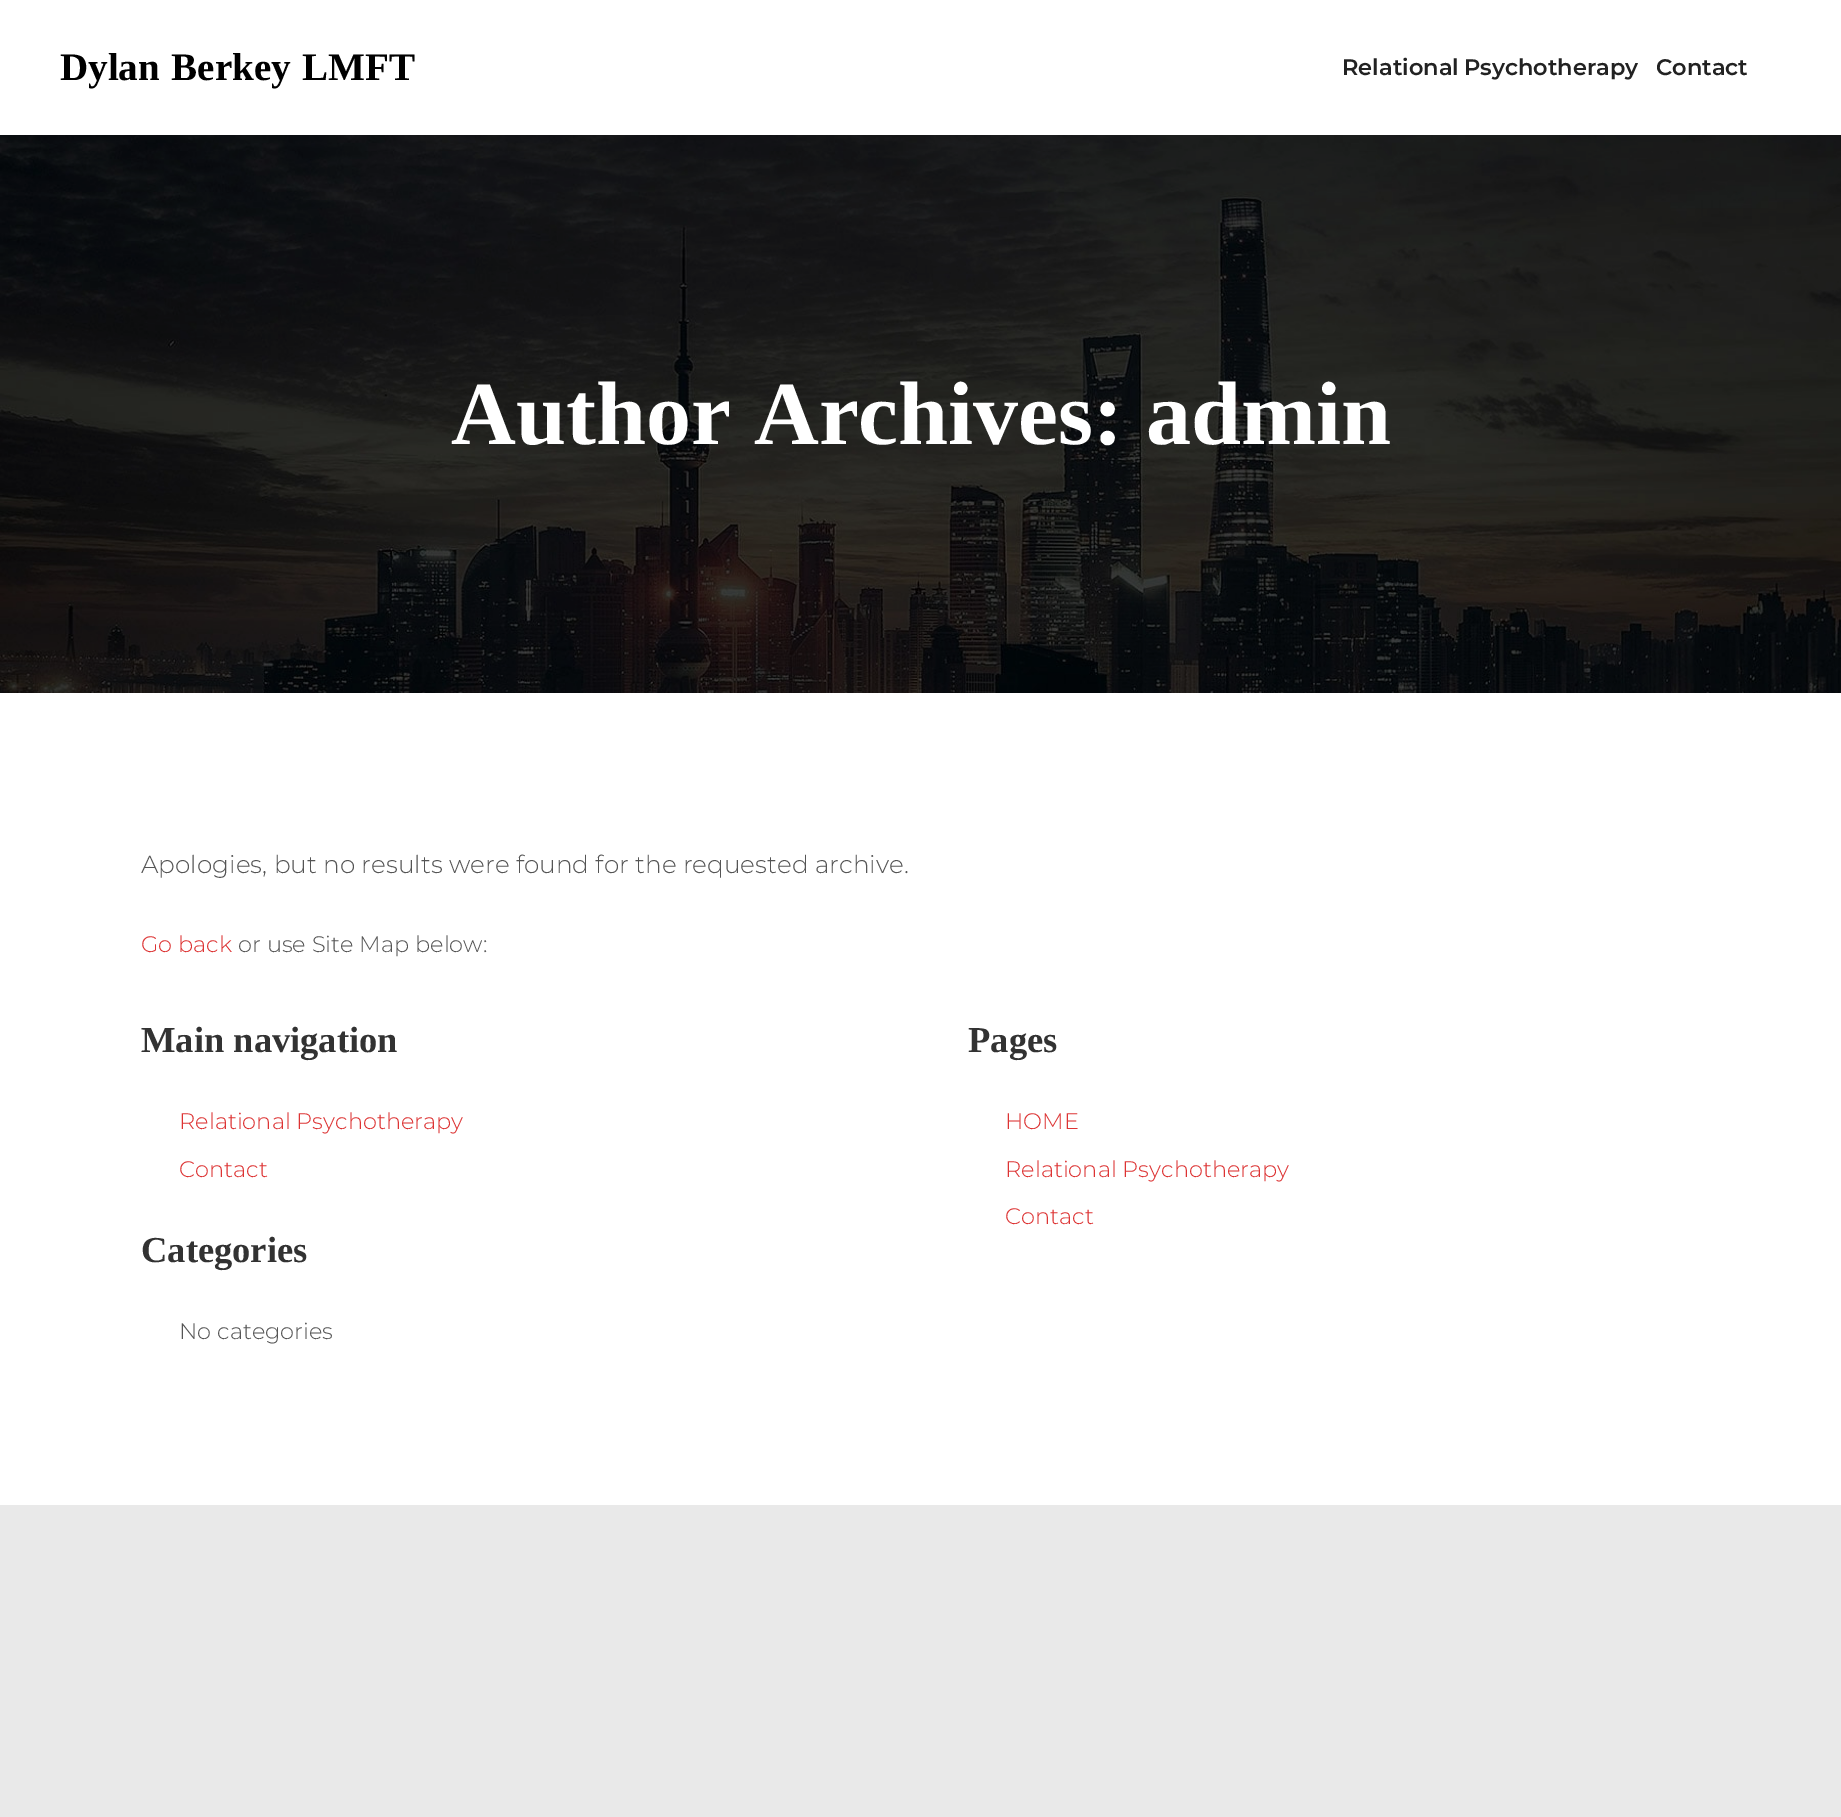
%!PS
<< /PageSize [1841 1817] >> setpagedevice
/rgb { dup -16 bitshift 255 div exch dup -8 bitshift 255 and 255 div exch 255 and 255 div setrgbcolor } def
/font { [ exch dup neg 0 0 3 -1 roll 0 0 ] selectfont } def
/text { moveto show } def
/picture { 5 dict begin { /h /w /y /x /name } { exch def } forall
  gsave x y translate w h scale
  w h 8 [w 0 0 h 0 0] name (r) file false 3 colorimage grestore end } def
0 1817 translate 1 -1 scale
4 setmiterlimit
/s1 { /Montserrat-SemiBold 22.5 font 16#222222 rgb } def
/s2 { /LiberationSerif-Bold 90 font 16#FFFFFF rgb } def
/s3 { /Montserrat-Light 24.75 font 16#555555 rgb } def
/s4 { /Montserrat-Light 22.5 font 16#DD3333 rgb } def
/s5 { /Montserrat-Light 22.5 font 16#555555 rgb } def
/s6 { /LiberationSerif-Bold 36.5 font 16#323232 rgb } def
16#E9E9E9 rgb
0 0 1841 1817 rectfill
16#FFFFFF rgb
0 0 1841 135 rectfill
/LiberationSerif-Bold 39 font
16#000000 rgb
60 80 moveto 2 0 32 (Dylan Berkey LMFT) widthshow
/Montserrat-SemiBold 22.5 font
16#222222 rgb
1342 75 moveto -1 0 32 (Relational Psychotherapy) widthshow
(Contact) 1656 75 text
(pic1.raw) 0 135 1841 558 picture
s2
(Author Archives: admin) 451 444 text
0 693 1841 812 rectfill
s3
(Apologies, but no results were found for the requested archive.) 141 873 text
s4
(Go back) 141 952 text
s5
(or use Site Map below:) 238 952 text
s6
(Main navigation) 141 1052 text
s4
(Relational Psychotherapy) 179 1129 text
(Contact) 179 1177 text
s6
(Categories) 141 1262 text
s5
(No categories) 179 1339 text
s6
(Pages) 968 1052 text
s4
(HOME) 1005 1129 text
(Relational Psychotherapy) 1005 1177 text
(Contact) 1005 1224 text
showpage
